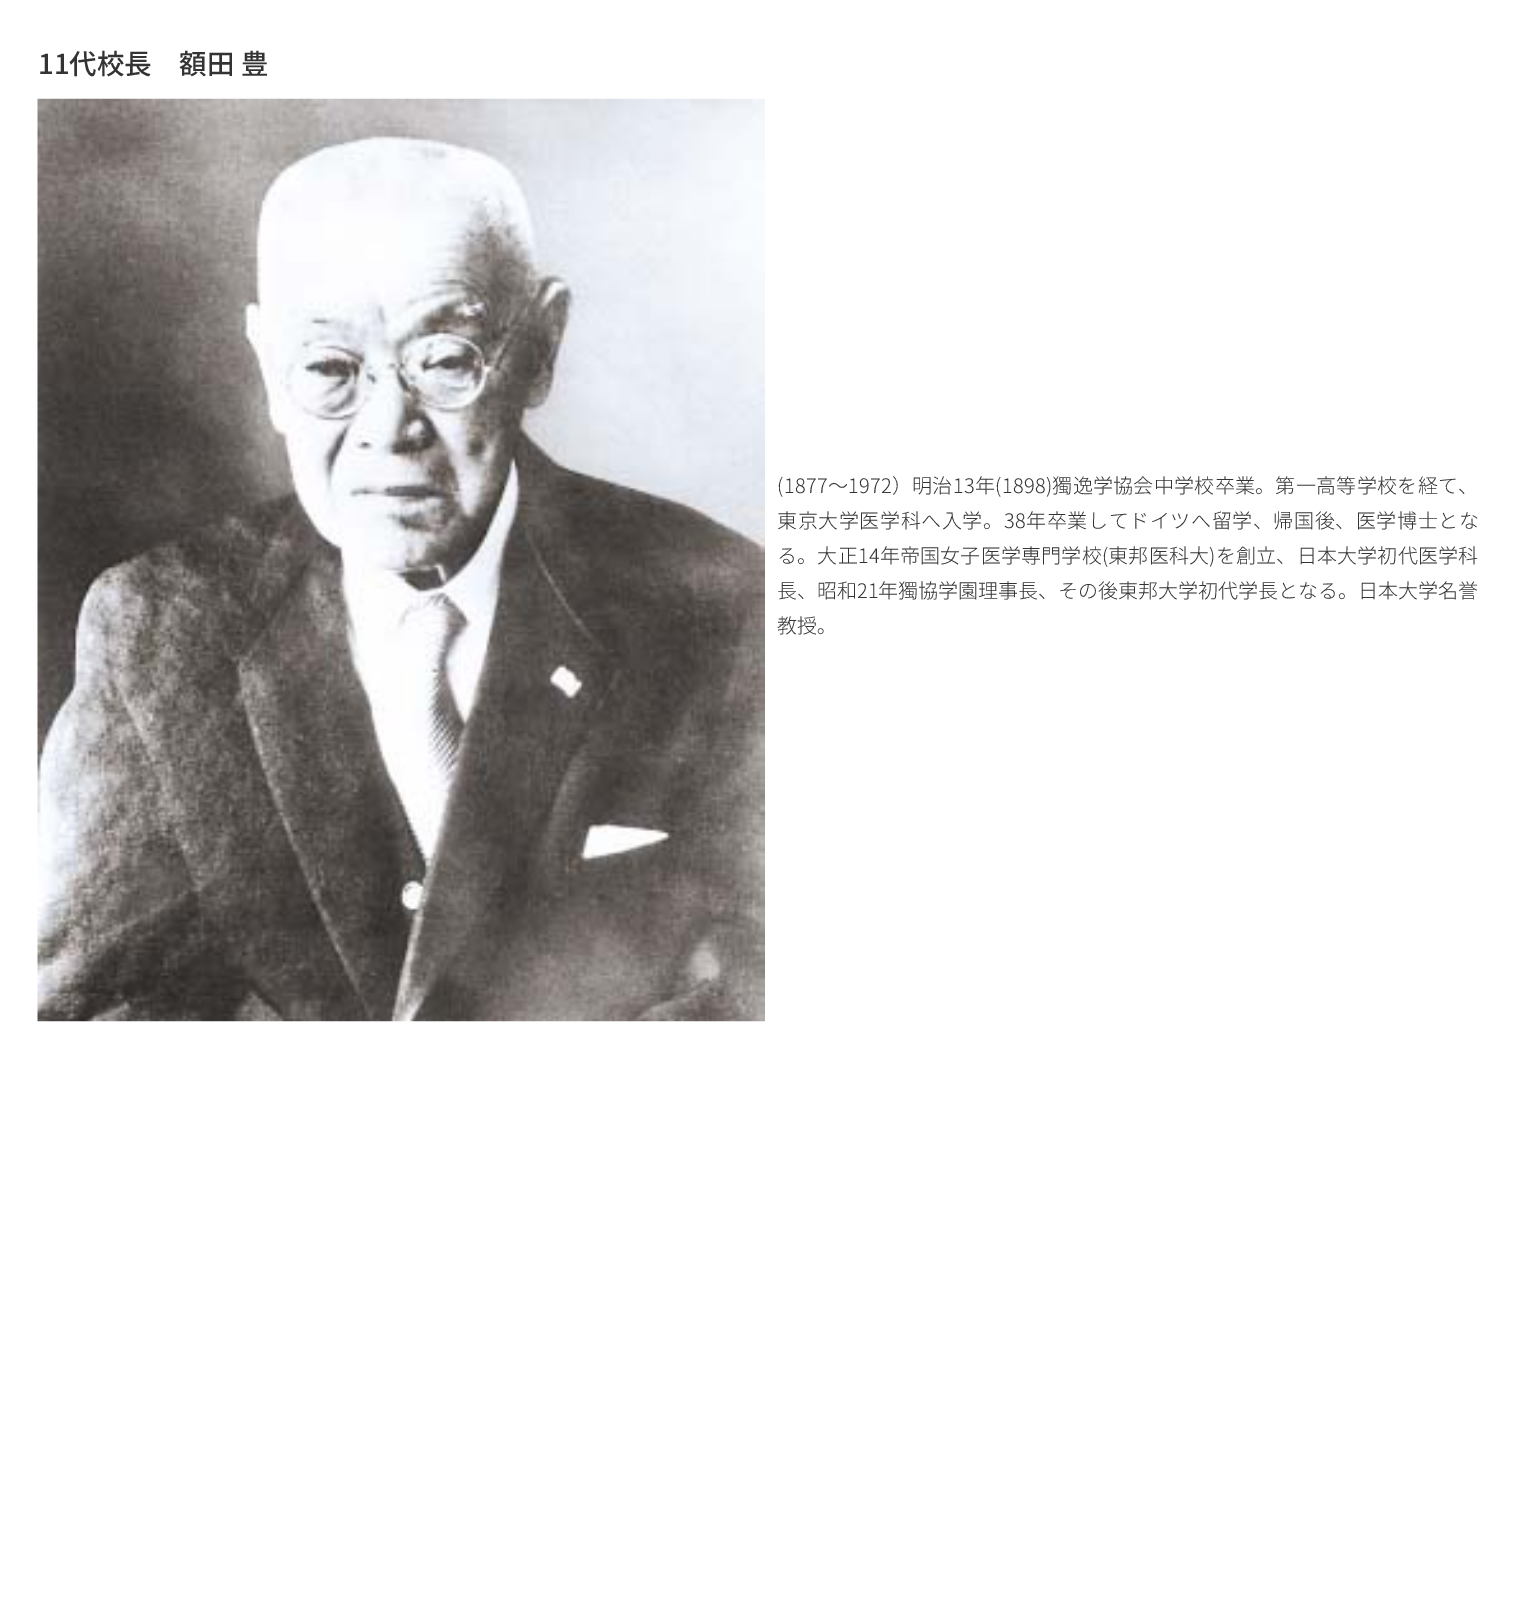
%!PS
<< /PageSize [1528 1614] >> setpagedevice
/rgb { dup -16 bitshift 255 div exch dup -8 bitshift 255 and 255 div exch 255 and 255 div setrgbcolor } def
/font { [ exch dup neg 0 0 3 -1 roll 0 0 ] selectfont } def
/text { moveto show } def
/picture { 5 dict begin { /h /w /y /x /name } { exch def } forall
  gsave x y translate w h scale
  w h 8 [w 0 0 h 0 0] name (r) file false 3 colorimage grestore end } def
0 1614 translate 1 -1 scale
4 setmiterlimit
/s1 { /NotoSansJP-Medium 27.5 font 16#333333 rgb } def
/s2 { /NotoSansJP-Light 20 font 16#333333 rgb } def
16#FFFFFF rgb
0 0 1528 1614 rectfill
s1
(11代校長　額田 豊) 38 74 text
(pic1.raw) 37 98 728 924 picture
/NotoSansJP-Light 20 font
777 493 moveto 0.3 0 (\(1877～1972）明治13年\(1898\)獨逸学協会中学校卒業。第一高等学校を経て、) ashow
777 528 moveto 0.6 0 (東京大学医学科へ入学。38年卒業してドイツへ留学、帰国後、医学博士とな) ashow
777 563 moveto 0.2 0 (る。大正14年帝国女子医学専門学校\(東邦医科大\)を創立、日本大学初代医学科) ashow
(長、昭和21年獨協学園理事長、その後東邦大学初代学長となる。日本大学名誉) 777 598 text
(教授｡) 777 633 text
showpage
